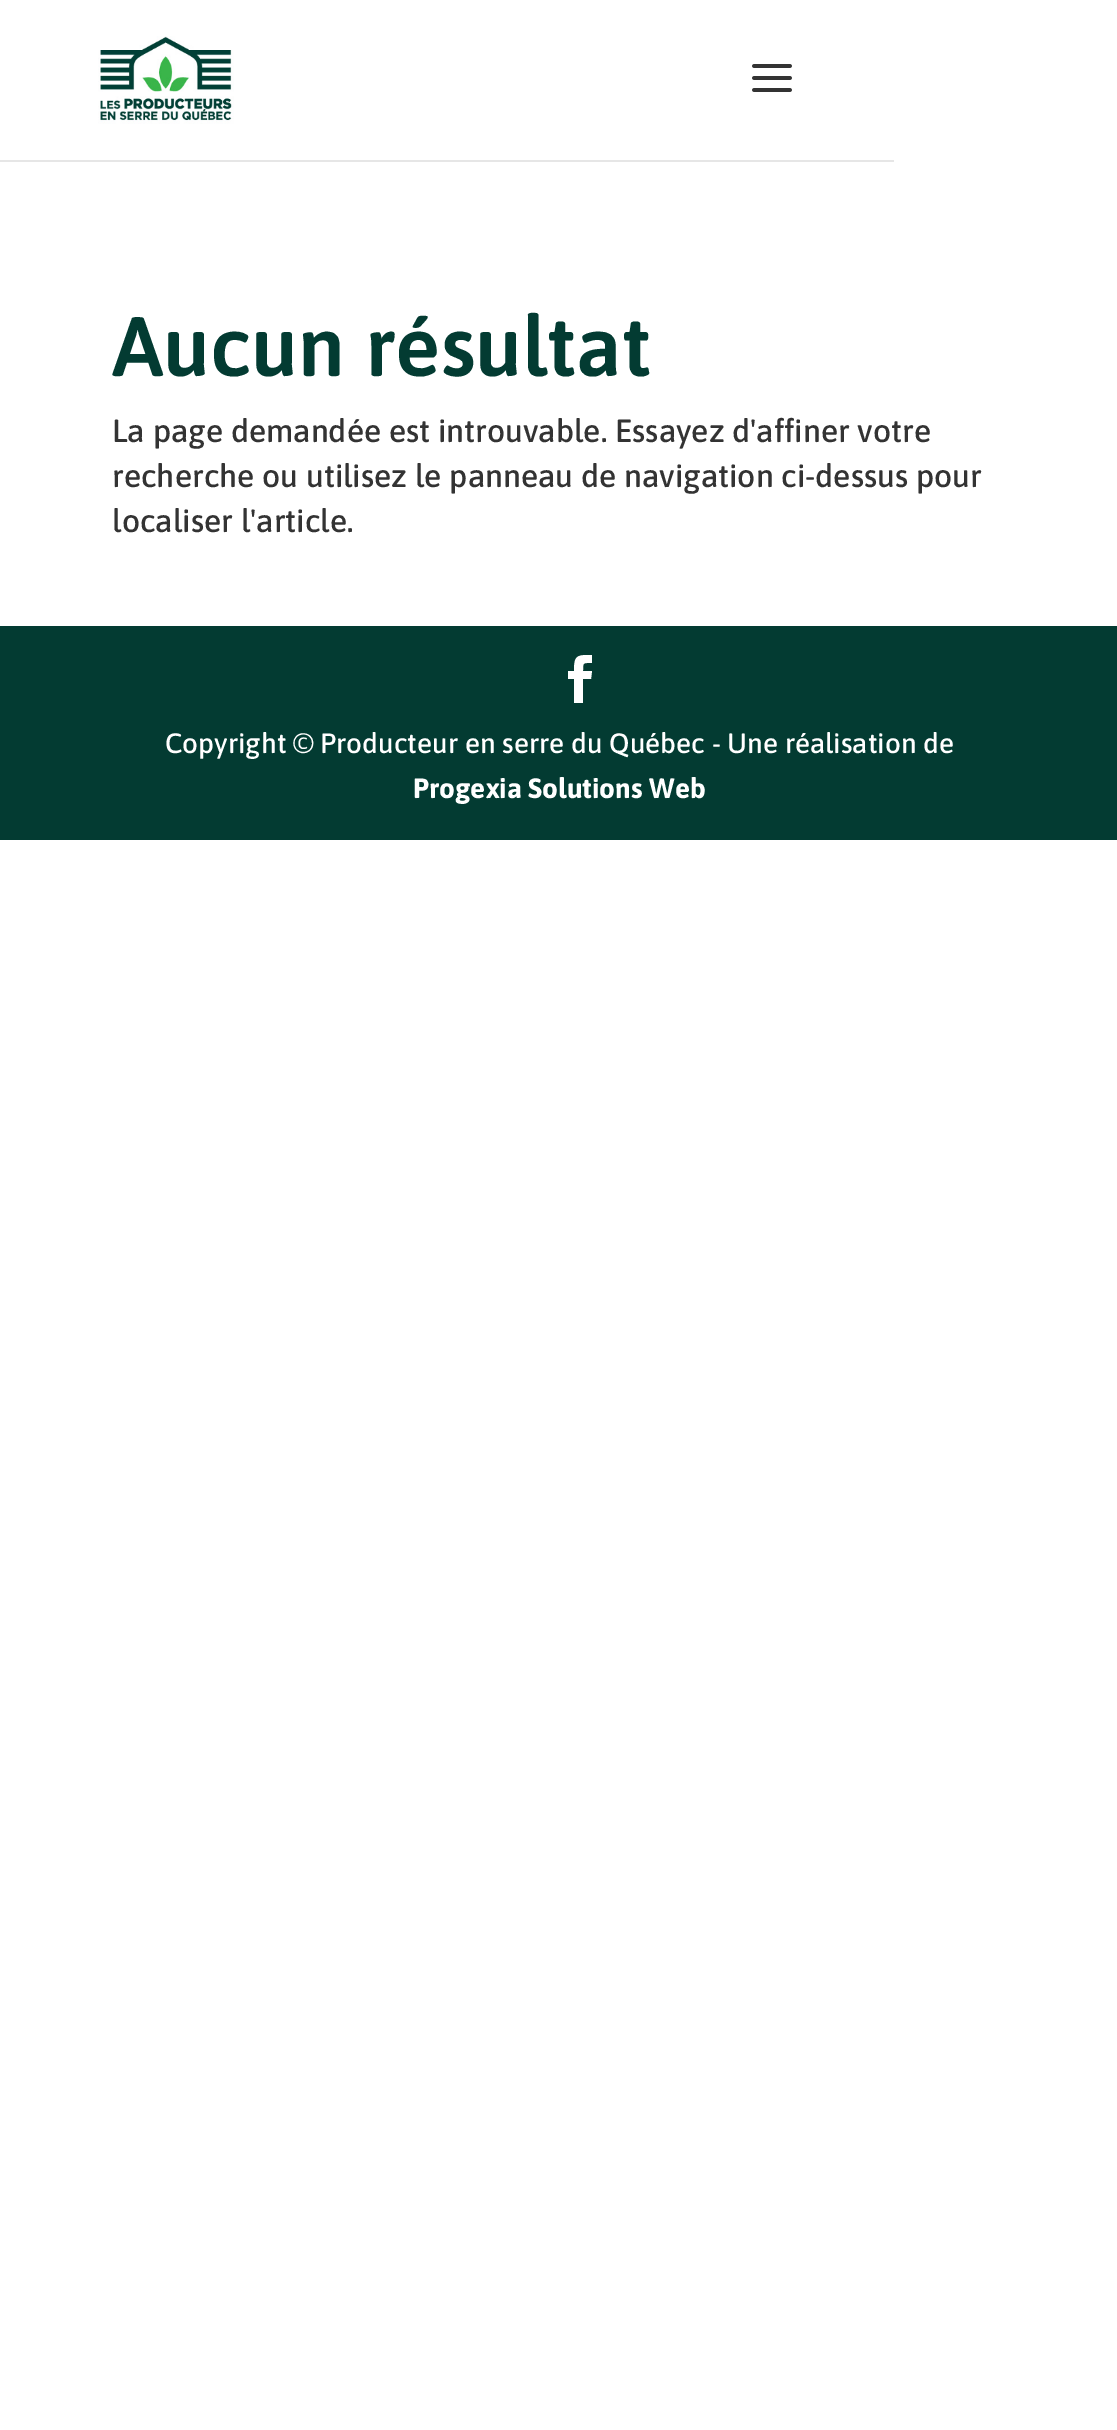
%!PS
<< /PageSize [1117 2430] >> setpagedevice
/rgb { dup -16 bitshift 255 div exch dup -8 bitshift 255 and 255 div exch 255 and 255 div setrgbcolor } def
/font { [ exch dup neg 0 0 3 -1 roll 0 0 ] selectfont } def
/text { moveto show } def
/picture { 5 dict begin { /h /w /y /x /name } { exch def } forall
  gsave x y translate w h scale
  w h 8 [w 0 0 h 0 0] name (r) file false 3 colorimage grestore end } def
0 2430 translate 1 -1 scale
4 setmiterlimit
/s1 { /Asap-SemiBold 84 font 16#033B32 rgb } def
/s2 { /Asap-Medium 32 font 16#333333 rgb } def
/s3 { /Asap-Medium 28 font 16#FFFFFF rgb } def
/s4 { /Asap-Bold 28 font 16#FFFFFF rgb } def
16#FFFFFF rgb
0 0 1117 2430 rectfill
16#E6E6E6 rgb
0 160 894 2 rectfill
(pic1.raw) 98 36 136 88 picture
(pic2.raw) 752 64 40 28 picture
s1
(Aucun résultat) 112 376 text
s2
(La page demandée est introuvable. Essayez d'affiner votre) 112 442 text
(recherche ou utilisez le panneau de navigation ci-dessus pour) 112 487 text
(localiser l'article.) 112 532 text
16#033B32 rgb
0 626 1117 214 rectfill
16#FFFFFF rgb
574 703 moveto 583 703 lineto 583 679 lineto 591 679 lineto 592 671 lineto 583 671 lineto 583 662 583 663 592 663 curveto 592 655 lineto 577 655 574 655 574 671 curveto 568 671 lineto 568 679 lineto 574 679 lineto closepath fill
s3
(Copyright © Producteur en serre du Québec - Une réalisation de) 165 753 text
s4
(Progexia Solutions Web) 413 798 text
showpage
